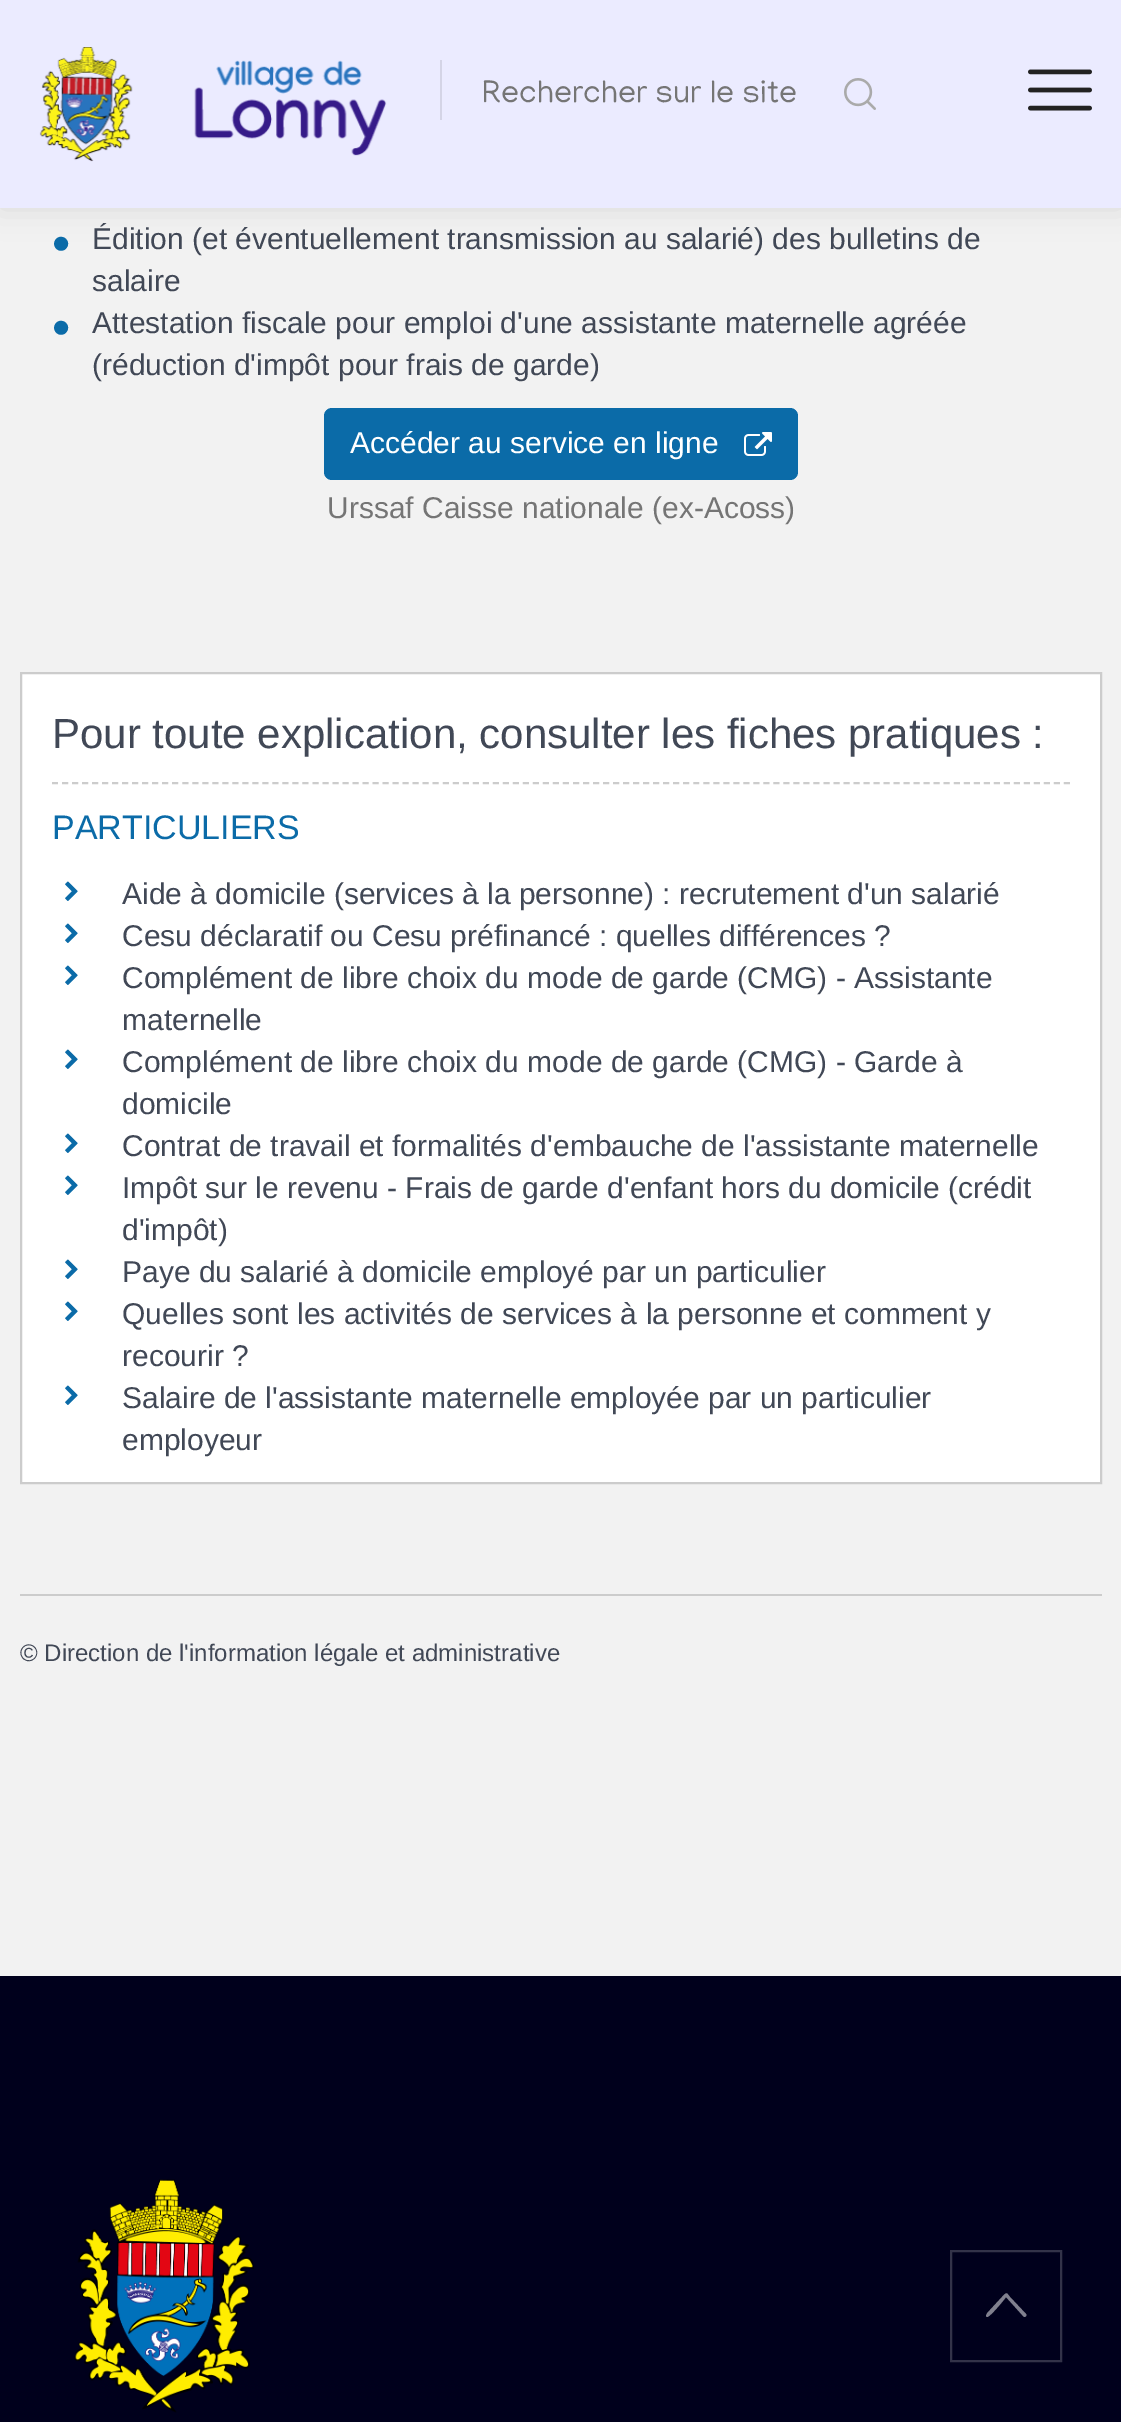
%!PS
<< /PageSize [1121 2422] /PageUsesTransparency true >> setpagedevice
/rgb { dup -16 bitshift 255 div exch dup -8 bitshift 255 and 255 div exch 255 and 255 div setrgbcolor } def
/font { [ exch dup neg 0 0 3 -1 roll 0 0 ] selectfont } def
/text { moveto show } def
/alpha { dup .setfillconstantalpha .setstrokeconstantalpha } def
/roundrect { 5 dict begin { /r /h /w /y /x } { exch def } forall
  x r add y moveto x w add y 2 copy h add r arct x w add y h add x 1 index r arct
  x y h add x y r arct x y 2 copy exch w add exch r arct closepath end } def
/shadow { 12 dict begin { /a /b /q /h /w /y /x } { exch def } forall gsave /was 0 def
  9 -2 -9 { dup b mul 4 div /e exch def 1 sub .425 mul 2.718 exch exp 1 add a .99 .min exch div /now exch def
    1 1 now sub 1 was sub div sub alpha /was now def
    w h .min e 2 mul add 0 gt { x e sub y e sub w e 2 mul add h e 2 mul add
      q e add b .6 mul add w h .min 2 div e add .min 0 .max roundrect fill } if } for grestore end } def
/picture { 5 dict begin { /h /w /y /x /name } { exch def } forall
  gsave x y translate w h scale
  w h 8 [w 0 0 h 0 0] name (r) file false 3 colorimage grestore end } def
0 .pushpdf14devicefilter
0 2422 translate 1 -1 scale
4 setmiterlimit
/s1 { /Manjari-Regular 32 font 16#757575 rgb } def
/s2 { /LiberationSans-Regular 52 font 16#0B6BA8 rgb } def
/s3 { /LiberationSans-Regular 30 font 16#414856 rgb } def
/s4 { /LiberationSans-Regular 30 font 16#FFFFFF rgb } def
/s5 { /LiberationSans-Regular 30 font 16#757575 rgb } def
/s6 { /LiberationSans-Regular 42 font 16#414856 rgb } def
/s7 { /LiberationSans-Regular 34 font 16#0B6BA8 rgb } def
/s8 { /LiberationSans-Regular 24 font 16#414856 rgb } def
16#F2F2F2 rgb
0 0 1121 2422 rectfill
16#000000 rgb
0 0 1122 208 0 15 0.1 shadow
16#EBEBFF rgb
0 0 1121 208 rectfill
(pic1.raw) 39 47 348 115 picture
16#D4D4E6 rgb
440 60 2 60 rectfill
s1
(Rechercher sur le site) 482 102 text
(pic2.raw) 844 78 32 32 picture
(pic3.raw) 1028 69 64 42 picture
s2
(•) 52 261 text
s3
(Édition \(et éventuellement transmission au salarié\) des bulletins de) 92 249 text
(salaire) 92 291 text
s2
(•) 52 345 text
s3
(Attestation fiscale pour emploi d'une assistante maternelle agréée) 92 333 text
(\(réduction d'impôt pour frais de garde\)) 92 375 text
16#0B6BA8 rgb
324 408 474 72 8 roundrect fill
s4
(Accéder au service en ligne) 350 453 text
(pic4.raw) 744 432 28 24 picture
s5
(Urssaf Caisse nationale \(ex-Acoss\)) 327 518 text
16#FFFFFF rgb
21 673 moveto 1101 673 lineto 1101 1483 lineto 21 1483 lineto closepath gsave fill grestore
16#CCCCCC rgb
2 setlinewidth
stroke
[6 4.02] 0 setdash
52 783 moveto 1070 783 lineto stroke
s6
(Pour toute explication, consulter les fiches pratiques :) 52 748 text
s7
(PARTICULIERS) 52 839 text
(pic5.raw) 65 881 13 20 picture
s3
(Aide à domicile \(services à la personne\) : recrutement d'un salarié) 122 904 text
(pic5.raw) 65 923 13 20 picture
(Cesu déclaratif ou Cesu préfinancé : quelles différences ?) 122 946 text
(pic5.raw) 65 965 13 20 picture
(Complément de libre choix du mode de garde \(CMG\) - Assistante) 122 988 text
(maternelle) 122 1030 text
(pic5.raw) 65 1049 13 20 picture
(Complément de libre choix du mode de garde \(CMG\) - Garde à) 122 1072 text
(domicile) 122 1114 text
(pic5.raw) 65 1133 13 20 picture
(Contrat de travail et formalités d'embauche de l'assistante maternelle) 122 1156 text
(pic5.raw) 65 1175 13 20 picture
(Impôt sur le revenu - Frais de garde d'enfant hors du domicile \(crédit) 122 1198 text
(d'impôt\)) 122 1240 text
(pic5.raw) 65 1259 13 20 picture
(Paye du salarié à domicile employé par un particulier) 122 1282 text
(pic5.raw) 65 1301 13 20 picture
(Quelles sont les activités de services à la personne et comment y) 122 1324 text
(recourir ?) 122 1366 text
(pic5.raw) 65 1385 13 20 picture
(Salaire de l'assistante maternelle employée par un particulier) 122 1408 text
(employeur) 122 1450 text
16#CCCCCC rgb
20 1594 1082 2 rectfill
s8
(© Direction de l'information légale et administrative) 20 1661 text
16#00001C rgb
0 1976 1121 446 rectfill
(pic6.raw) 74 2179 180 234 picture
16#333349 rgb
[] 0 setdash
951 2251 110 110 rectstroke
16#80808E rgb
1026 2314 moveto 1027 2315 1026 2317 1024 2317 curveto 1006 2297 lineto 1004 2300 990 2317 987 2317 curveto 984 2316 989 2311 990 2310 curveto 1002 2297 lineto 1007 2292 1006 2292 1010 2297 curveto closepath fill
.poppdf14devicefilter showpage
